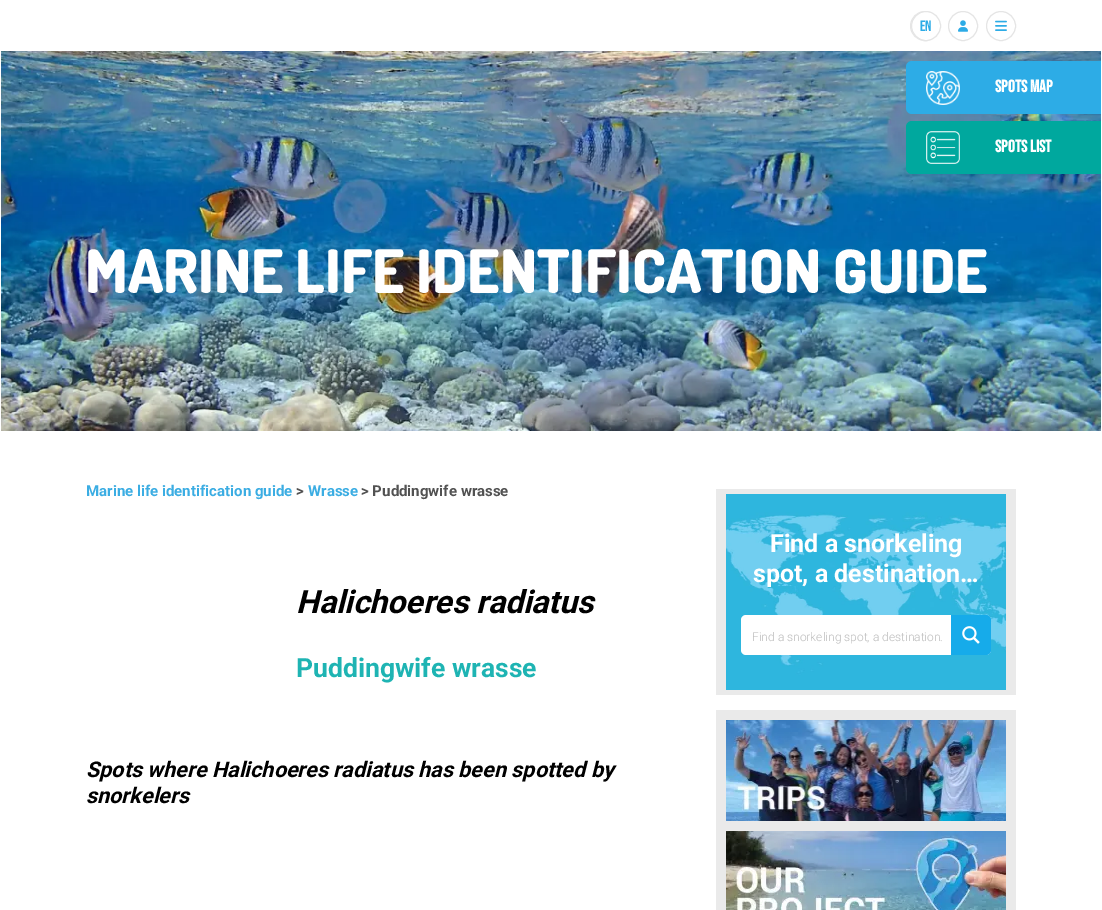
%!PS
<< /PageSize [1102 910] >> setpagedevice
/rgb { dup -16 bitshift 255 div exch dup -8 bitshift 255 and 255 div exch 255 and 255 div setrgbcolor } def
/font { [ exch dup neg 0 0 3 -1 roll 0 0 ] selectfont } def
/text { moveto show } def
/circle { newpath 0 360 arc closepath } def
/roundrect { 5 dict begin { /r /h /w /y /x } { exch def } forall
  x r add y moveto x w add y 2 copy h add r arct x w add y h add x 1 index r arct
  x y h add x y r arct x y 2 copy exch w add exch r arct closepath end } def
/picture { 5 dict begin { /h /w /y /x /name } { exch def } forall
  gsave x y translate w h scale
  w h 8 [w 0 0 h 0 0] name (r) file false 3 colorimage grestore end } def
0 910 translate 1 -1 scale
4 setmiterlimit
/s1 { /BebasNeue-Regular 15 font 16#2CABE6 rgb } def
/s2 { /BebasNeue-Bold 17 font 16#FFFFFF rgb } def
/s3 { /Dosis-ExtraBold 60 font 16#FFFFFF rgb } def
/s4 { /Roboto-Bold 15 font 16#3BADE3 rgb } def
/s5 { /Roboto-Bold 15 font 16#525252 rgb } def
/s6 { /Roboto-BoldItalic 32 font 16#000000 rgb } def
/s7 { /Roboto-Bold 26.5 font 16#1EB4B3 rgb } def
/s8 { /Roboto-BoldItalic 21.6 font 16#000000 rgb } def
/s9 { /Roboto-Bold 25 font 16#FFFFFF rgb } def
/s10 { /Roboto-Light 12 font 16#BBBBBB rgb } def
16#FFFFFF rgb
0 0 1102 910 rectfill
16#E5E5E5 rgb
925 26 14.5 circle stroke
16#FFFFFF rgb
926 26 14.5 circle gsave fill grestore
16#E5E5E5 rgb
stroke
s1
(EN) 920 31 text
16#E5E5E5 rgb
963 26 14.5 circle stroke
(pic1.raw) 958 20 10 12 picture
1001 26 14.5 circle stroke
(pic2.raw) 995 20 12 11 picture
(pic5.raw) 1 51 1100 380 picture
gsave
1 51 1100 380 rectclip
16#2DACE6 rgb
906 61 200 53 6 roundrect fill
grestore
(pic3.raw) 926 71 34 34 picture
s2
(SPOTS MAP) 995 92 text
gsave
1 51 1100 380 rectclip
16#00A89E rgb
906 121 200 53 6 roundrect fill
grestore
(pic4.raw) 926 131 34 33 picture
(SPOTS LIST) 995 152 text
s3
(MARINE LIFE IDENTIFICATION GUIDE) 85 293 text
s4
(Marine life identification guide) 86 496 text
s5
(>) 296 496 text
s4
(Wrasse) 308 496 text
s5
(> Puddingwife wrasse) 361 496 text
s6
(Halichoeres radiatus) 296 613 text
s7
(Puddingwife wrasse) 296 677 text
s8
(Spots where Halichoeres radiatus has been spotted by) 86 777 text
(snorkelers) 86 803 text
16#EAEAEA rgb
716 489 300 206 rectfill
(pic6.raw) 726 494 280 196 picture
s9
(Find a snorkeling) 770 552 text
(spot, a destination…) 753 582 text
741 615 250 40 5 roundrect fill
s10
(Find a snorkeling spot, a destination.) 752 641 text
16#16ABEA rgb
951 615 moveto 986 615 lineto 989 615 991 617 991 620 curveto 991 650 lineto 991 653 989 655 986 655 curveto 951 655 lineto closepath fill
(pic7.raw) 962 626 18 18 picture
16#EAEAEA rgb
716 710 300 200 rectfill
(pic8.raw) 726 720 280 101 picture
(pic9.raw) 726 831 280 79 picture
showpage
